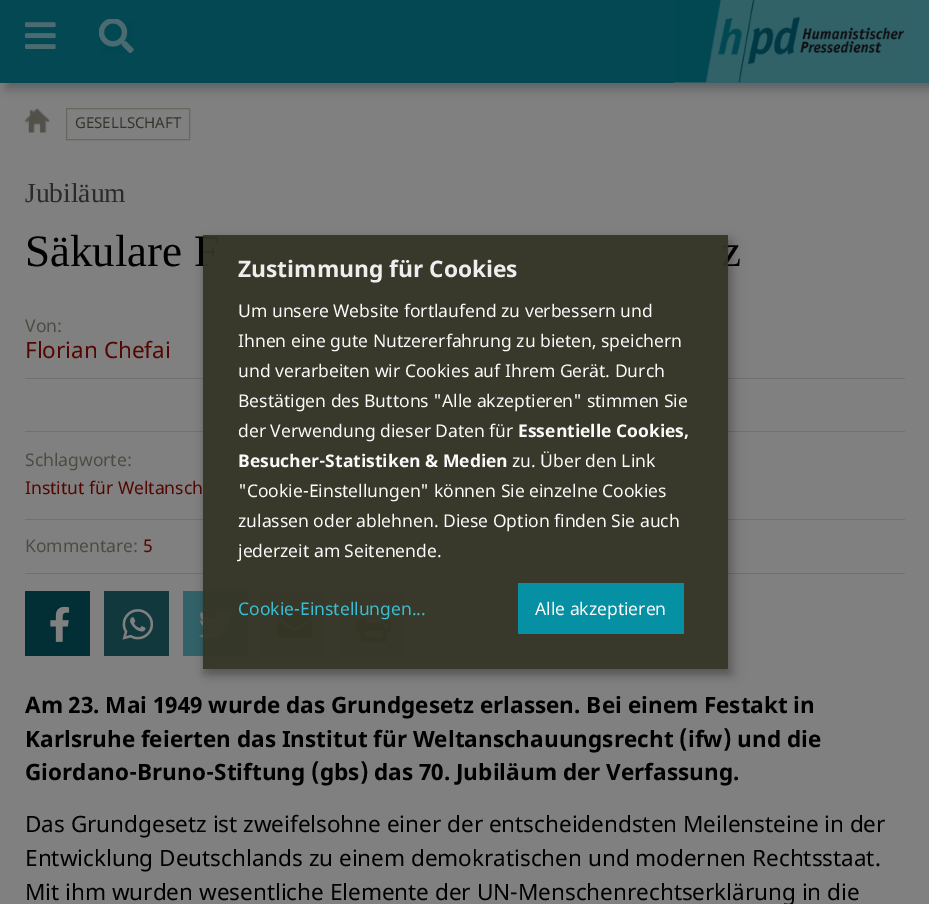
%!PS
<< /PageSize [929 904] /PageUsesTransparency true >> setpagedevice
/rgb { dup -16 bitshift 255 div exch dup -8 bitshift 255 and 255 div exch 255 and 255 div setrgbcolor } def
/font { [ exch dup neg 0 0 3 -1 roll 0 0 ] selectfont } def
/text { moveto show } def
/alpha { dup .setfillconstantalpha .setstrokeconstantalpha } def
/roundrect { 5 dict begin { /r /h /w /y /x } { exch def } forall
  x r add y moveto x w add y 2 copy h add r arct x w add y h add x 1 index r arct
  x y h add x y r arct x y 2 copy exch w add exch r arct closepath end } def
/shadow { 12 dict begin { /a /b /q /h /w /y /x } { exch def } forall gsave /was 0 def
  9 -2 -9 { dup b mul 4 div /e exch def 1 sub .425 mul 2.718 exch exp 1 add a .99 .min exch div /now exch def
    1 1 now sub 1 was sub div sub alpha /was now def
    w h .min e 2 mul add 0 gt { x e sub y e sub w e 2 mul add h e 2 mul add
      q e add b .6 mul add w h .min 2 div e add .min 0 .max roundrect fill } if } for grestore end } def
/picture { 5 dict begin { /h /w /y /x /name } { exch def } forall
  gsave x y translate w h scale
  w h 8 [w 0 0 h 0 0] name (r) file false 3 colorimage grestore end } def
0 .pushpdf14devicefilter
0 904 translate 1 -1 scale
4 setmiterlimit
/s1 { /NotoSans-Regular 15 font 16#34342D rgb } def
/s2 { /LiberationSerif-Regular 27.5 font 16#2A2A2A rgb } def
/s3 { /LiberationSerif-Regular 45 font 16#000000 rgb } def
/s4 { /NotoSans-Regular 17.5 font 16#4C4C43 rgb } def
/s5 { /NotoSans-Regular 22.5 font 16#530600 rgb } def
/s6 { /NotoSans-Regular 17.5 font 16#530600 rgb } def
/s7 { /NotoSans-Bold 22.5 font 16#000000 rgb } def
/s8 { /NotoSans-Regular 22.5 font 16#000000 rgb } def
/s9 { /NotoSans-Bold 22.75 font 16#EEEEEE rgb } def
/s10 { /NotoSans-Regular 17.5 font 16#FAFAFA rgb } def
/s11 { /NotoSans-Bold 17.5 font 16#FAFAFA rgb } def
/s12 { /NotoSans-Regular 17.5 font 16#39BED1 rgb } def
16#808080 rgb
0 0 929 904 rectfill
16#011215 rgb
6 6 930 83 0 4.5 0.26 shadow
16#034852 rgb
0 0 674 83 rectfill
16#316269 rgb
674 0 255 83 rectfill
(pic1.raw) 674 0 48 83 picture
(pic2.raw) 718 0 187 83 picture
(pic3.raw) 25 22 31 27 picture
(pic4.raw) 99 19 35 35 picture
(pic5.raw) 25 108 25 25 picture
16#676760 rgb
66.5 108.5 123 31 rectstroke
s1
(GESELLSCHAFT) 75 128 text
s2
(Jubiläum) 25 202 text
s3
(Säkulare F) 25 266 text
(z) 721 266 text
s4
(Von:) 25 332 text
s5
(Florian Chefai) 25 358 text
16#71716B rgb
25 378 880 1 rectfill
25 431 880 1 rectfill
25 519 880 1 rectfill
s4
(Schlagworte:) 25 466 text
s6
(Institut für Weltansch) 25 494 text
16#71716B rgb
25 573 880 1 rectfill
s4
(Kommentare:) 25 552 text
s6
(5) 143 552 text
16#012F35 rgb
25 591 65 65 rectfill
(pic6.raw) 50 606 20 36 picture
16#11383D rgb
104 591 65 65 rectfill
(pic7.raw) 122 609 32 31 picture
16#316269 rgb
183 591 65 65 rectfill
(pic8.raw) 199 610 35 29 picture
16#797977 rgb
261 591 65 65 rectfill
(pic9.raw) 277 611 36 27 picture
340 591 65 65 rectfill
(pic10.raw) 356 606 36 36 picture
s7
(Am 23. Mai 1949 wurde das Grundgesetz erlassen. Bei einem Festakt in) 25 713 text
(Karlsruhe feierten das Institut für Weltanschauungsrecht \(ifw\) und die) 25 747 text
(Giordano-Bruno-Stiftung \(gbs\) das 70. Jubiläum der Verfassung.) 25 780 text
s8
(Das Grundgesetz ist zweifelsohne einer der entscheidendsten Meilensteine in der) 25 832 text
(Entwicklung Deutschlands zu einem demokratischen und modernen Rechtsstaat.) 25 866 text
(Mit ihm wurden wesentliche Elemente der UN-Menschenrechtserklärung in die) 25 900 text
gsave
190 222 moveto 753 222 lineto 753 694 lineto 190 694 lineto closepath 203 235 moveto 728 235 lineto 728 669 lineto 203 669 lineto closepath eoclip newpath
209 241 525 434 0 6 0.19 shadow
grestore
gsave
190 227 moveto 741 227 lineto 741 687 lineto 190 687 lineto closepath 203 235 moveto 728 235 lineto 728 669 lineto 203 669 lineto closepath eoclip newpath
203 240 525 434 0 4 0.2 shadow
grestore
0.95 alpha
16#353526 rgb
203 235 525 434 rectfill
1 alpha
s9
(Zustimmung für Cookies) 238 277 text
s10
(Um unsere Website fortlaufend zu verbessern und) 238 317 text
(Ihnen eine gute Nutzererfahrung zu bieten, speichern) 238 347 text
(und verarbeiten wir Cookies auf Ihrem Gerät. Durch) 238 377 text
(Bestätigen des Buttons "Alle akzeptieren" stimmen Sie) 238 407 text
(der Verwendung dieser Daten für) 238 437 text
s11
(Essentielle Cookies,) 518 437 text
(Besucher-Statistiken & Medien) 238 467 text
s10
(zu. Über den Link) 512 467 text
("Cookie-Einstellungen" können Sie einzelne Cookies) 238 497 text
(zulassen oder ablehnen. Diese Option finden Sie auch) 238 527 text
(jederzeit am Seitenende.) 238 557 text
s12
(Cookie-Einstellungen...) 238 615 text
16#0590A3 rgb
518 583 166 51 rectfill
s10
(Alle akzeptieren) 535 615 text
.poppdf14devicefilter showpage
